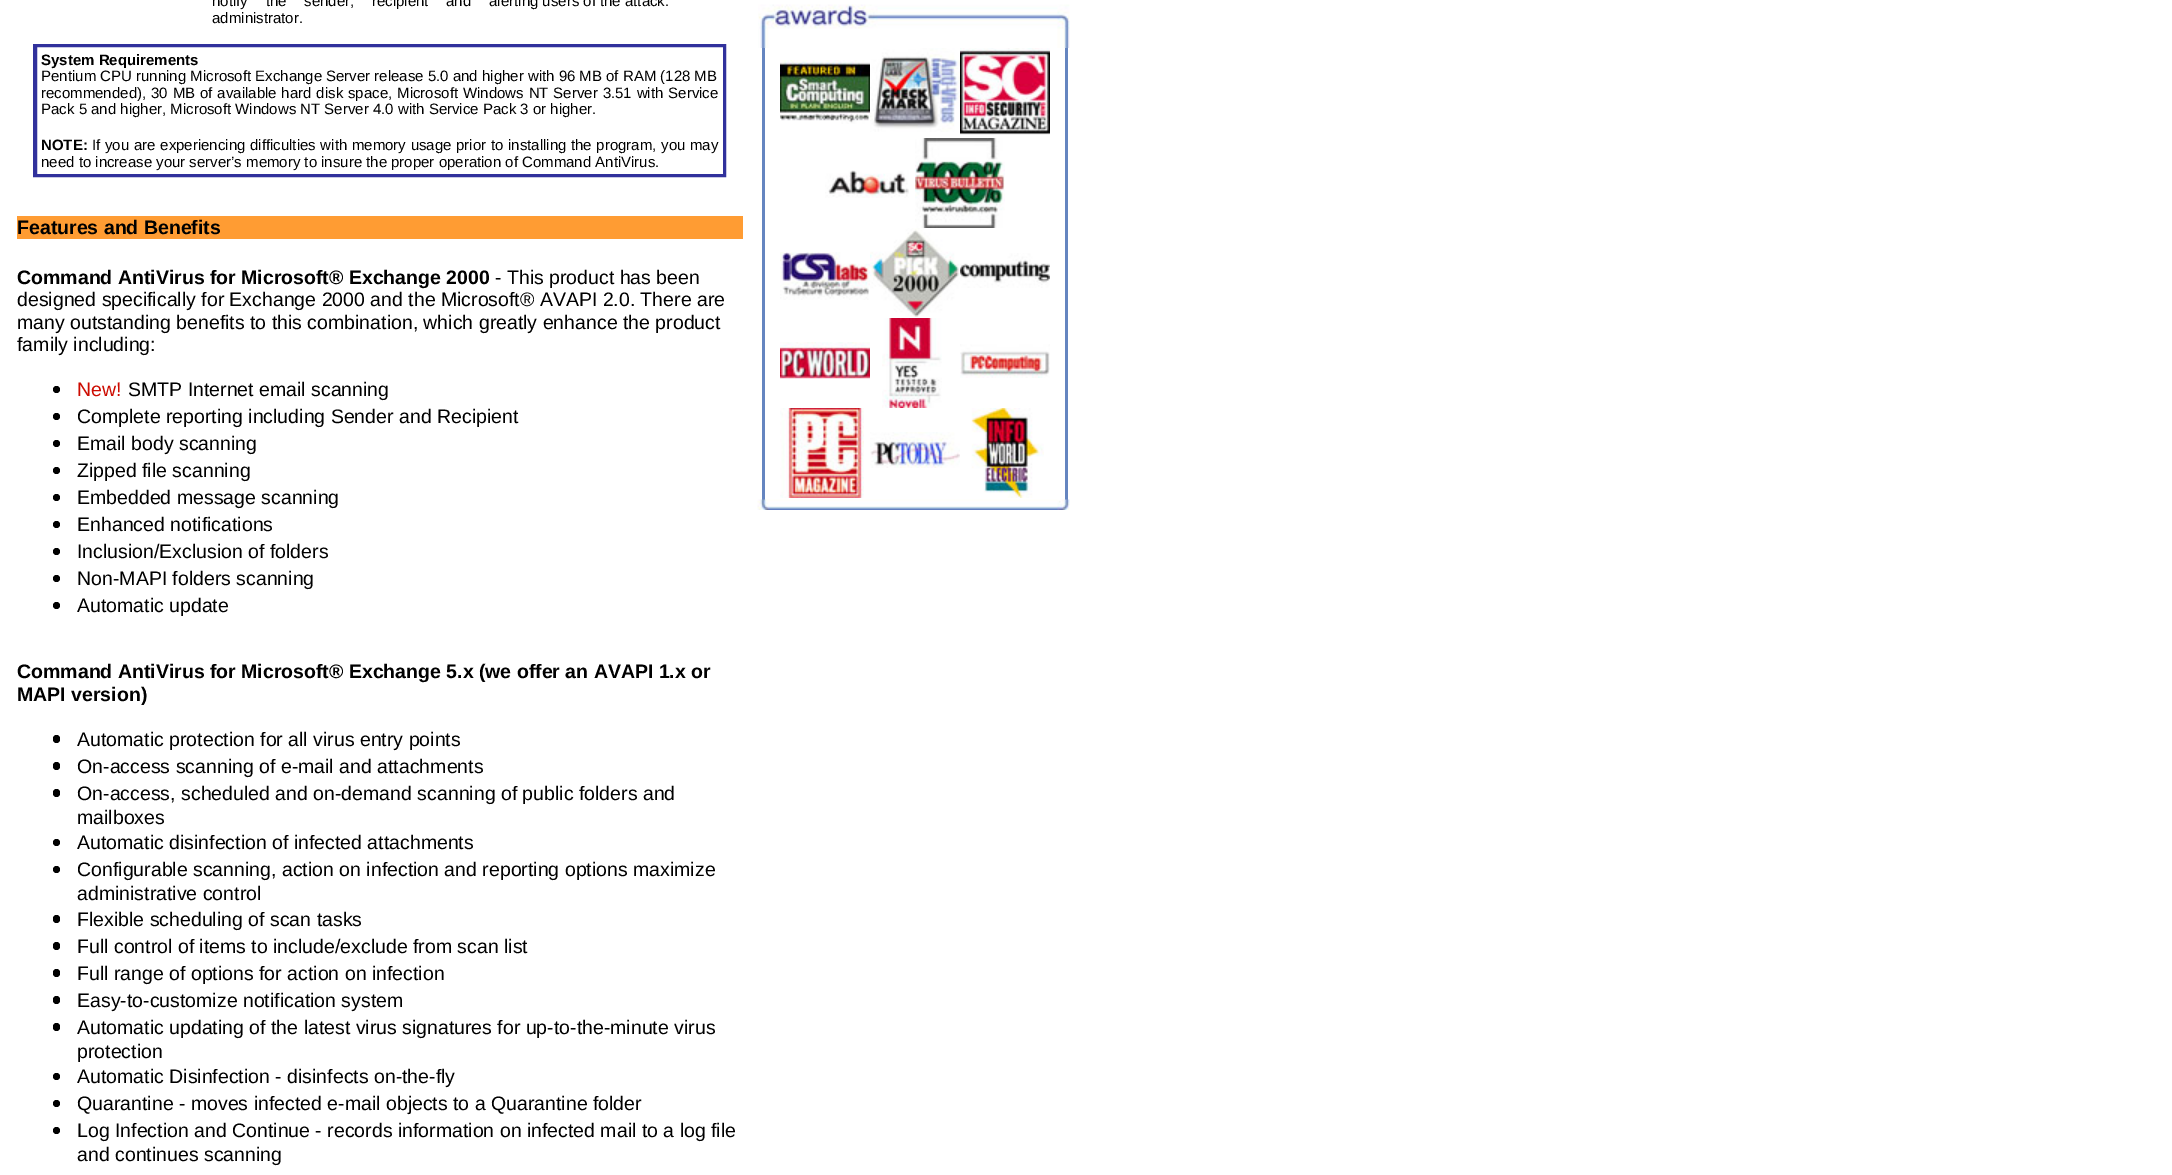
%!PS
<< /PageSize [2172 1175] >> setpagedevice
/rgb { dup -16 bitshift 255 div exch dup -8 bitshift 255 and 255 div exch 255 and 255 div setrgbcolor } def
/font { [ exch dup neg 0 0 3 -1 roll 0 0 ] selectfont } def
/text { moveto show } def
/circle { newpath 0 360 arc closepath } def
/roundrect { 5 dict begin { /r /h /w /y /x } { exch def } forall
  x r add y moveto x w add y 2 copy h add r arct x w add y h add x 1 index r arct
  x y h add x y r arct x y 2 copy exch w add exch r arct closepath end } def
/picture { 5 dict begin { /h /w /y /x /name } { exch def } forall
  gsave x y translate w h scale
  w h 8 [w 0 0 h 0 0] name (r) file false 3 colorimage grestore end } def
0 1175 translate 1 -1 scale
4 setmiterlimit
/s1 { /LiberationSans-Regular 15 font 16#000000 rgb } def
/s2 { /LiberationSans-Bold 15 font 16#000000 rgb } def
/s3 { /LiberationSans-Bold 19.5 font 16#000000 rgb } def
/s4 { /LiberationSans-Regular 19.5 font 16#000000 rgb } def
/s5 { /LiberationSans-Regular 19.5 font 16#CD0C01 rgb } def
16#FFFFFF rgb
0 0 2172 1175 rectfill
/LiberationSans-Regular 15 font
16#000000 rgb
212 6 moveto 13.5 0 32 (notify the sender, recipient and) widthshow
(administrator.) 212 23 text
(alerting users of the attack.) 489 6 text
16#31319C rgb
2 setlinewidth
34 45 691 131 rectstroke
36 46 688 129 rectstroke
s2
(System Requirements) 41 65 text
s1
(Pentium CPU running Microsoft Exchange Server release 5.0 and higher with 96 MB of RAM \(128 MB) 41 81 text
41 98 moveto 0.75 0 32 (recommended\), 30 MB of available hard disk space, Microsoft Windows NT Server 3.51 with Service) widthshow
(Pack 5 and higher, Microsoft Windows NT Server 4.0 with Service Pack 3 or higher.) 41 114 text
s2
(NOTE:) 41 150 text
/LiberationSans-Regular 15 font
92 150 moveto 0.5 0 32 (If you are experiencing difficulties with memory usage prior to installing the program, you may) widthshow
(need to increase your server’s memory to insure the proper operation of Command AntiVirus.) 41 167 text
16#FF9C33 rgb
17 216 726 23 rectfill
s3
(Features and Benefits) 17 234 text
(Command AntiVirus for Microsoft® Exchange 2000) 17 284 text
s4
(- This product has been) 495 284 text
(designed specifically for Exchange 2000 and the Microsoft® AVAPI 2.0. There are) 17 306 text
(many outstanding benefits to this combination, which greatly enhance the product) 17 329 text
(family including:) 17 351 text
56.5 389.5 3.5 circle fill
s5
(New!) 77 396 text
s4
(SMTP Internet email scanning) 128 396 text
56.5 416.5 3.5 circle fill
(Complete reporting including Sender and Recipient) 77 423 text
56.5 443.5 3.5 circle fill
(Email body scanning) 77 450 text
56.5 470.5 3.5 circle fill
(Zipped file scanning) 77 477 text
56.5 497.5 3.5 circle fill
(Embedded message scanning) 77 504 text
56.5 524.5 3.5 circle fill
(Enhanced notifications) 77 531 text
56.5 551.5 3.5 circle fill
(Inclusion/Exclusion of folders) 77 558 text
56.5 578.5 3.5 circle fill
(Non-MAPI folders scanning) 77 585 text
56.5 605.5 3.5 circle fill
(Automatic update) 77 612 text
s3
(Command AntiVirus for Microsoft® Exchange 5.x \(we offer an AVAPI 1.x or) 17 678 text
(MAPI version\)) 17 701 text
53 735 7 8 3.5 roundrect fill
s4
(Automatic protection for all virus entry points) 77 746 text
53 762 7 8 3.5 roundrect fill
(On-access scanning of e-mail and attachments) 77 773 text
53 789 7 8 3.5 roundrect fill
(On-access, scheduled and on-demand scanning of public folders and) 77 800 text
(mailboxes) 77 824 text
56.5 842.5 3.5 circle fill
(Automatic disinfection of infected attachments) 77 849 text
56.5 869.5 3.5 circle fill
(Configurable scanning, action on infection and reporting options maximize) 77 876 text
(administrative control) 77 900 text
53 915 7 8 3.5 roundrect fill
(Flexible scheduling of scan tasks) 77 926 text
53 942 7 8 3.5 roundrect fill
(Full control of items to include/exclude from scan list) 77 953 text
53 969 7 8 3.5 roundrect fill
(Full range of options for action on infection) 77 980 text
53 996 7 8 3.5 roundrect fill
(Easy-to-customize notification system) 77 1007 text
53 1023 7 8 3.5 roundrect fill
(Automatic updating of the latest virus signatures for up-to-the-minute virus) 77 1034 text
(protection) 77 1058 text
56.5 1076.5 3.5 circle fill
(Automatic Disinfection - disinfects on-the-fly) 77 1083 text
56.5 1103.5 3.5 circle fill
(Quarantine - moves infected e-mail objects to a Quarantine folder) 77 1110 text
56.5 1130.5 3.5 circle fill
(Log Infection and Continue - records information on infected mail to a log file) 77 1137 text
(and continues scanning) 77 1161 text
(pic1.raw) 758 4 312 44 picture
16#6585C0 rgb
762 48 3 452 rectfill
(pic2.raw) 780 60 90 64 picture
(pic3.raw) 870 48 90 84 picture
(pic4.raw) 960 48 90 87 picture
(pic5.raw) 825 170 84 28 picture
(pic6.raw) 915 138 90 90 picture
(pic7.raw) 780 252 90 48 picture
(pic8.raw) 870 228 90 89 picture
(pic9.raw) 960 253 90 35 picture
(pic10.raw) 780 342 90 37 picture
(pic11.raw) 882 318 60 90 picture
(pic12.raw) 960 344 90 34 picture
(pic13.raw) 780 408 84 90 picture
(pic14.raw) 870 432 90 36 picture
(pic15.raw) 971 408 73 90 picture
1065 48 3 452 rectfill
(pic16.raw) 757 499 313 11 picture
showpage
